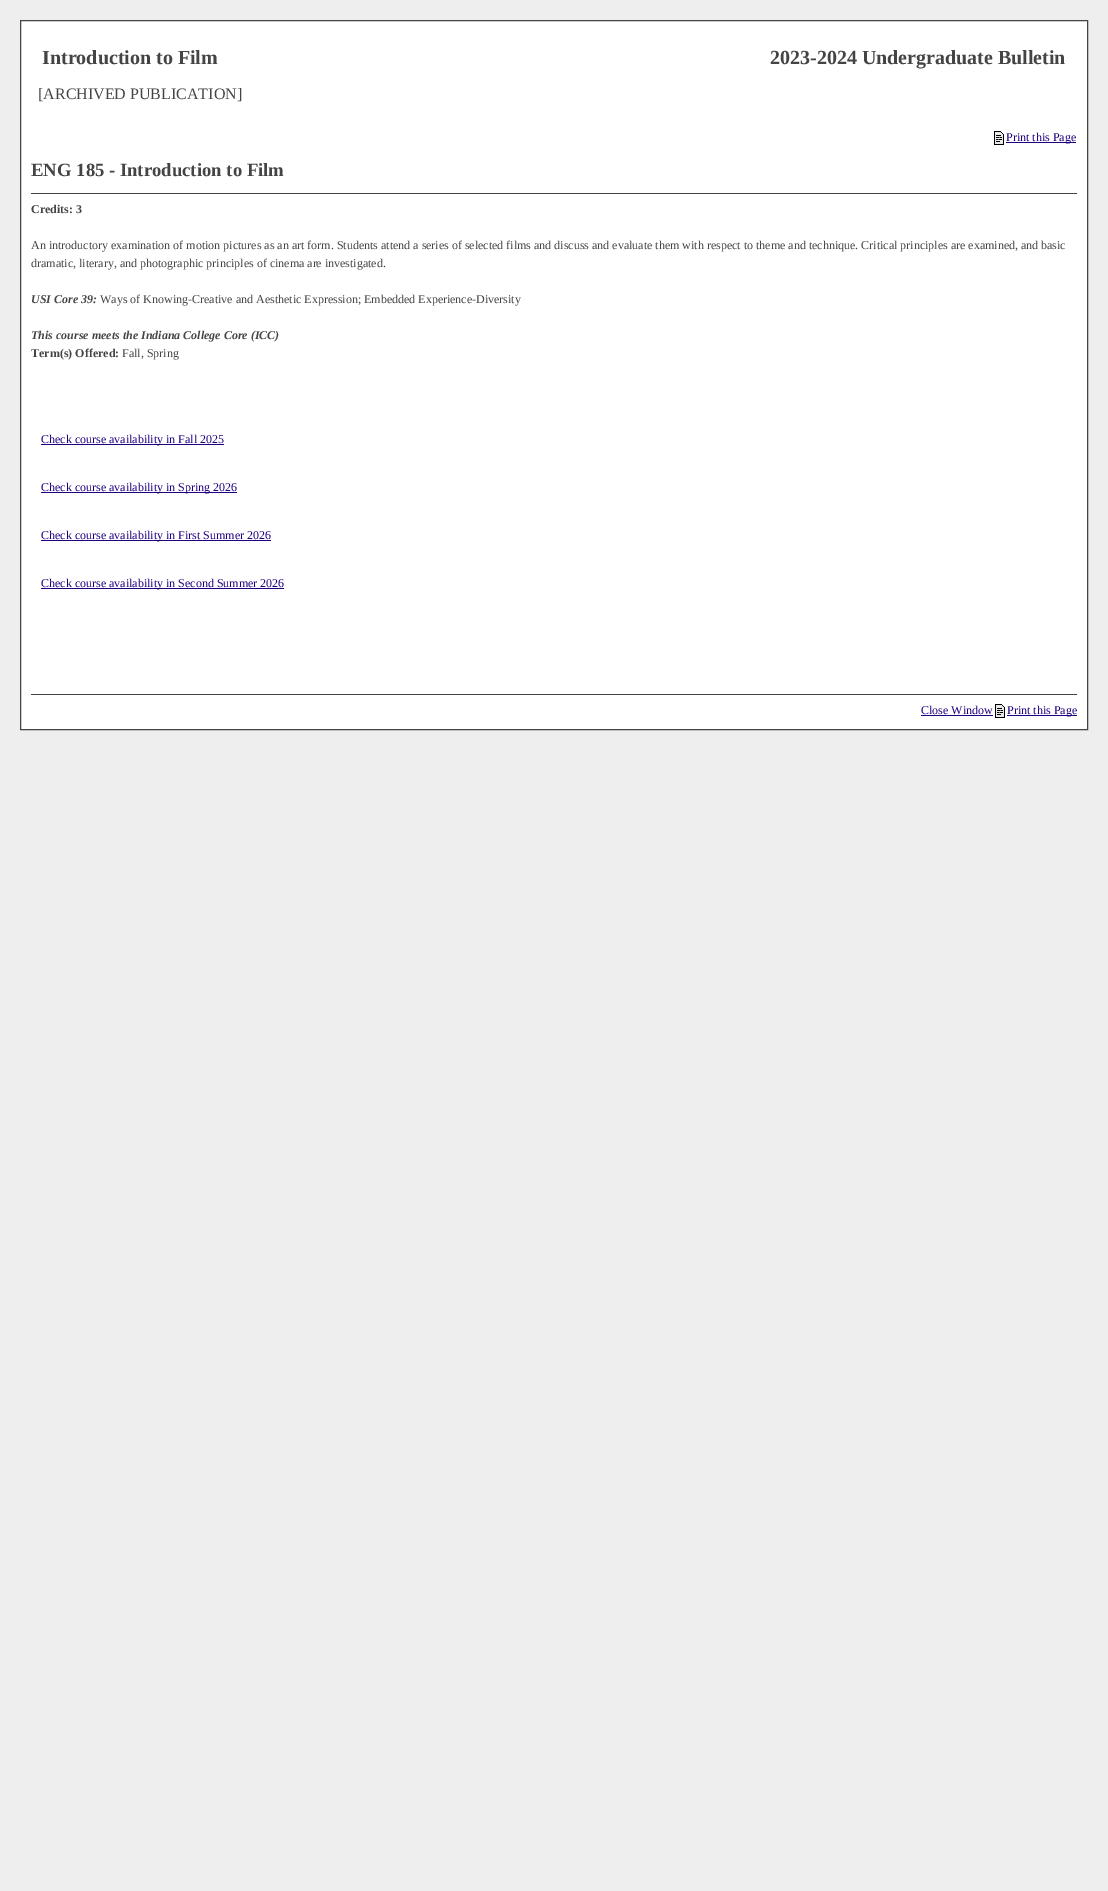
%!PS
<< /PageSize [1108 1891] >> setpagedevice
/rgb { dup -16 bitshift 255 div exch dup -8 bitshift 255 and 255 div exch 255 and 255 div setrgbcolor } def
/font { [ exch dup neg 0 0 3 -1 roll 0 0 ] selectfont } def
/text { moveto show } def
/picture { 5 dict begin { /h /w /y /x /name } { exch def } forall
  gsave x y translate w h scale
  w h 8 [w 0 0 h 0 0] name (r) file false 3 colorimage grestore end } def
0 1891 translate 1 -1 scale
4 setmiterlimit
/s1 { /LiberationSerif-Bold 20 font 16#444444 rgb } def
/s2 { /LiberationSerif-Regular 16 font 16#444444 rgb } def
/s3 { /LiberationSerif-Regular 12 font 16#20007F rgb } def
/s4 { /LiberationSerif-Bold 18.7 font 16#444444 rgb } def
/s5 { /LiberationSerif-Bold 12 font 16#444444 rgb } def
/s6 { /LiberationSerif-Regular 12 font 16#444444 rgb } def
/s7 { /LiberationSerif-BoldItalic 12 font 16#444444 rgb } def
16#EEEEEE rgb
0 0 1108 1891 rectfill
16#FFFFFF rgb
20.5 20.5 moveto 1087.5 20.5 lineto 1087.5 729.5 lineto 20.5 729.5 lineto closepath gsave fill grestore
16#444444 rgb
stroke
s1
(Introduction to Film) 42 64 text
s2
([ARCHIVED PUBLICATION]) 38 99 text
s1
(2023-2024 Undergraduate Bulletin) 770 64 text
(pic1.raw) 994 131 10 14 picture
16#20007F rgb
1006 142 70 1 rectfill
s3
(Print this Page) 1006 141 text
s4
(ENG 185 - Introduction to Film) 31 176 text
31 193 1046 1 rectfill
s5
(Credits: 3) 31 213 text
s6
(An introductory examination of motion pictures as an art form. Students attend a series of selected films and discuss and evaluate them with respect to theme and technique. Critical principles are examined, and basic) 31 249 text
(dramatic, literary, and photographic principles of cinema are investigated.) 31 267 text
s7
(USI Core 39:) 31 303 text
s6
(Ways of Knowing-Creative and Aesthetic Expression; Embedded Experience-Diversity) 100 303 text
s7
(This course meets the Indiana College Core \(ICC\)) 31 339 text
s5
(Term\(s\) Offered:) 31 357 text
s6
(Fall, Spring) 122 357 text
16#20007F rgb
41 444 183 1 rectfill
(Check course availability in Fall 2025) 41 443 text
41 492 196 1 rectfill
(Check course availability in Spring 2026) 41 491 text
41 540 230 1 rectfill
(Check course availability in First Summer 2026) 41 539 text
41 588 243 1 rectfill
(Check course availability in Second Summer 2026) 41 587 text
16#444444 rgb
31 694 1046 1 rectfill
s3
(Close Window) 921 714 text
921 715 72 1 rectfill
(pic1.raw) 995 704 10 14 picture
1007 715 70 1 rectfill
(Print this Page) 1007 714 text
showpage
